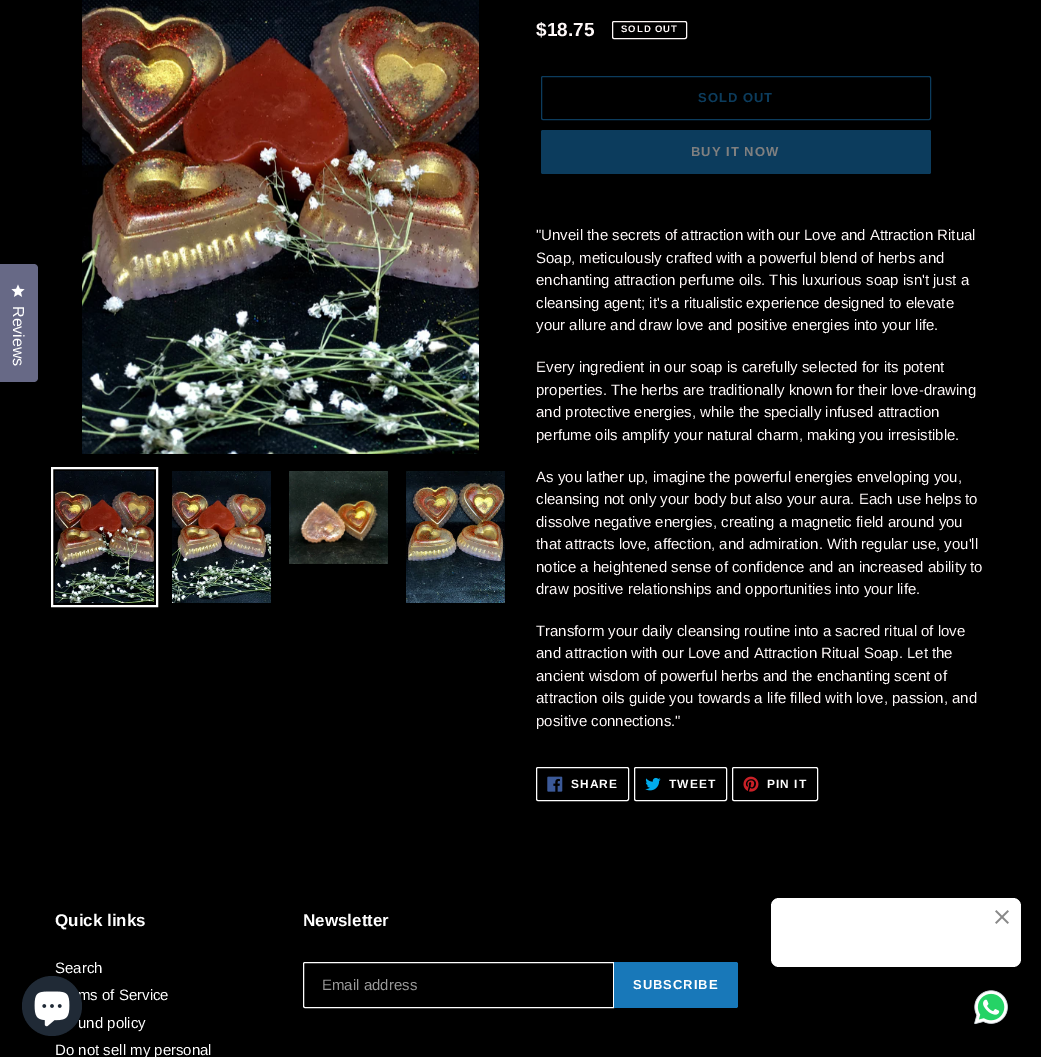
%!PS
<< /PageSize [1041 1057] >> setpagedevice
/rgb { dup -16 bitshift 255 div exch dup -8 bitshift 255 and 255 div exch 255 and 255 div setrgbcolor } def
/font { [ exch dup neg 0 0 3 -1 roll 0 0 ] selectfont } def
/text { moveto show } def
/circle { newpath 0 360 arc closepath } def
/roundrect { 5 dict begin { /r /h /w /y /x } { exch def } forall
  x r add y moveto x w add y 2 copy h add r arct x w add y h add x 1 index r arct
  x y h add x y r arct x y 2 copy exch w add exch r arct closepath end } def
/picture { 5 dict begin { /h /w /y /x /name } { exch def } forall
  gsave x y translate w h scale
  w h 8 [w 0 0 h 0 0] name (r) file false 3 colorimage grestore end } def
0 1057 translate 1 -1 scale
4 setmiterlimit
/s1 { /LiberationSans-Bold 19 font 16#FFF9F9 rgb } def
/s2 { /LiberationSans-Regular 15 font 16#FFF9F9 rgb } def
/s3 { /LiberationSans-Bold 17 font 16#FFFFFF rgb } def
/s4 { /LiberationSans-Regular 15 font 16#FFFFFF rgb } def
/s5 { /LiberationSans-Regular 15 font 16#999999 rgb } def
16#000000 rgb
0 0 1041 1057 rectfill
16#676986 rgb
-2 264 moveto 34 264 lineto 36 264 38 266 38 268 curveto 38 378 lineto 38 380 36 382 34 382 curveto -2 382 lineto closepath fill
(pic1.raw) 11 284 14 13 picture
/LiberationSans-Regular 16 font
16#FFFFFF rgb
gsave 13 306 translate 90.1 rotate 0 0 moveto (Reviews) show grestore
(pic2.raw) 82 0 397 454 picture
2 setlinewidth
52 468 105 138 rectstroke
(pic3.raw) 55 471 99 132 picture
(pic4.raw) 172 471 99 132 picture
(pic5.raw) 289 471 99 93 picture
(pic6.raw) 406 471 99 132 picture
s1
($18.75) 536 36 text
1 setlinewidth
612.5 21.5 74 17 1.5 roundrect stroke
/LiberationSans-Bold 9.5 font
621 32 moveto 1 0 (SOLD OUT) ashow
16#0C3C5D rgb
541.5 76.5 389 43 1.5 roundrect stroke
/LiberationSans-Bold 13 font
698 102 moveto 1 0 (SOLD OUT) ashow
541 130 390 44 2 roundrect fill
16#808080 rgb
691 156 moveto 1 0 (BUY IT NOW) ashow
s2
("Unveil the secrets of attraction with our Love and Attraction Ritual) 536 240 text
(Soap, meticulously crafted with a powerful blend of herbs and) 536 263 text
(enchanting attraction perfume oils. This luxurious soap isn't just a) 536 285 text
(cleansing agent; it's a ritualistic experience designed to elevate) 536 308 text
(your allure and draw love and positive energies into your life.) 536 330 text
(Every ingredient in our soap is carefully selected for its potent) 536 372 text
(properties. The herbs are traditionally known for their love-drawing) 536 395 text
(and protective energies, while the specially infused attraction) 536 417 text
(perfume oils amplify your natural charm, making you irresistible.) 536 440 text
(As you lather up, imagine the powerful energies enveloping you,) 536 482 text
(cleansing not only your body but also your aura. Each use helps to) 536 504 text
(dissolve negative energies, creating a magnetic field around you) 536 527 text
(that attracts love, affection, and admiration. With regular use, you'll) 536 549 text
(notice a heightened sense of confidence and an increased ability to) 536 572 text
(draw positive relationships and opportunities into your life.) 536 594 text
(Transform your daily cleansing routine into a sacred ritual of love) 536 636 text
(and attraction with our Love and Attraction Ritual Soap. Let the) 536 658 text
(ancient wisdom of powerful herbs and the enchanting scent of) 536 681 text
(attraction oils guide you towards a life filled with love, passion, and) 536 703 text
(positive connections.") 536 726 text
16#FFFFFF rgb
536.5 767.5 92 33 1.5 roundrect stroke
(pic7.raw) 547 776 16 16 picture
/LiberationSans-Bold 12 font
571 788 moveto 1 0 (SHARE) ashow
634.5 767.5 92 33 1.5 roundrect stroke
(pic8.raw) 645 777 16 14 picture
669 788 moveto 1 0 (TWEET) ashow
732.5 767.5 85 33 1.5 roundrect stroke
(pic9.raw) 743 776 16 16 picture
767 788 moveto 1 0 (PIN IT) ashow
s3
(Quick links) 55 926 text
s4
(Search) 55 973 text
(ms of Service) 78 1000 text
(und policy) 78 1028 text
(Do not sell my personal) 55 1055 text
s3
(Newsletter) 303 926 text
305 962.5 moveto 613.5 962.5 lineto 613.5 1007.5 lineto 305 1007.5 lineto 304 1007.5 303.5 1007 303.5 1006 curveto 303.5 964 lineto 303.5 963 304 962.5 305 962.5 curveto closepath stroke
s5
(Email address) 322 990 text
16#1878B9 rgb
614 962 moveto 736 962 lineto 737 962 738 963 738 964 curveto 738 1006 lineto 738 1007 737 1008 736 1008 curveto 614 1008 lineto closepath fill
/LiberationSans-Bold 13 font
16#FFFFFF rgb
633 989 moveto 1 0 (SUBSCRIBE) ashow
16#202A36 rgb
52 1006 30 circle fill
(pic10.raw) 34 991 36 36 picture
16#FFFFFF rgb
771 898 250 69 8 roundrect fill
(pic11.raw) 995 910 14 14 picture
(pic12.raw) 974 990 34 35 picture
showpage
